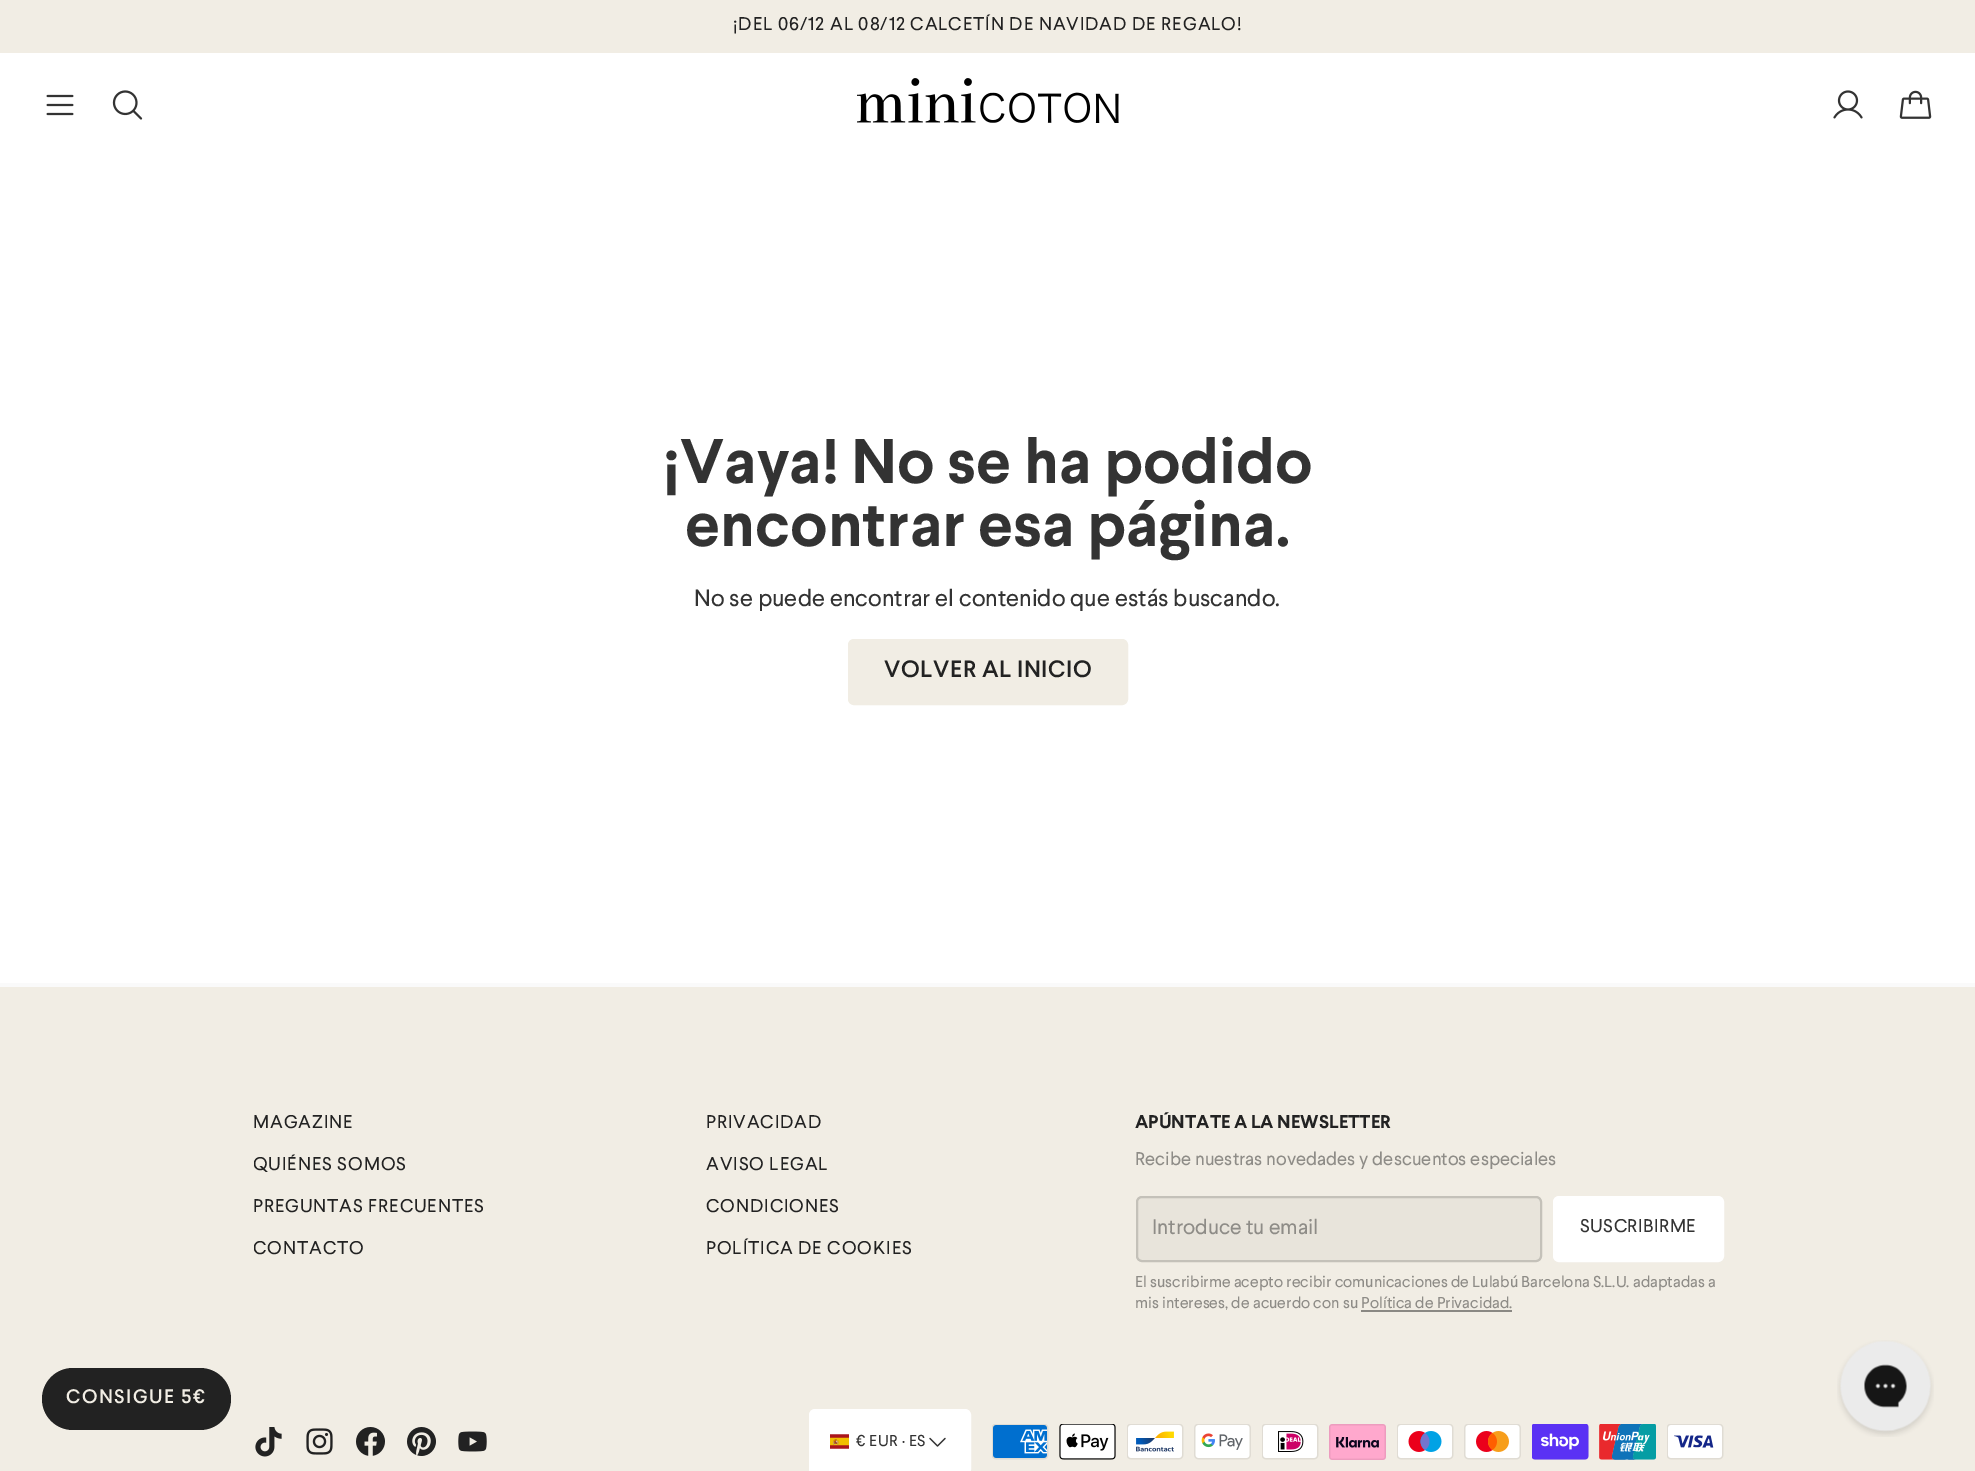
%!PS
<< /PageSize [1975 1471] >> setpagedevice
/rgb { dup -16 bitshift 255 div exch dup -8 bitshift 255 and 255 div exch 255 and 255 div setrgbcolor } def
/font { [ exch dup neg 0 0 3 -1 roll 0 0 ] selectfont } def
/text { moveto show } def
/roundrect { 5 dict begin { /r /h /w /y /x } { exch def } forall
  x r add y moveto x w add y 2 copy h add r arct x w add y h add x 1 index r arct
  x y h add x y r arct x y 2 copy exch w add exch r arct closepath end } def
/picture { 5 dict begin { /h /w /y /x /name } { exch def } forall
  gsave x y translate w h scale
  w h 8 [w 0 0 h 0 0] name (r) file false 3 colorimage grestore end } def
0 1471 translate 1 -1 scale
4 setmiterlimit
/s1 { /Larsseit-Bold 63 font 16#333333 rgb } def
/s2 { /Larsseit-Regular 23.6 font 16#333333 rgb } def
/s3 { /Larsseit-Bold 18.4 font 16#222222 rgb } def
/s4 { /Larsseit-Regular 18.4 font 16#8E8C87 rgb } def
/s5 { /Larsseit-Regular 21 font 16#8E8C87 rgb } def
/s6 { /Larsseit-Regular 15.75 font 16#8E8C87 rgb } def
16#FFFFFF rgb
0 0 1975 1471 rectfill
16#F1EDE4 rgb
0 0 1975 53 rectfill
/Larsseit-Regular 18.4 font
16#222222 rgb
733 30 moveto 0.92 0 (¡DEL 06/12 AL 08/12 CALCETÍN DE NAVIDAD DE REGALO!) ashow
(pic1.raw) 46 94 28 22 picture
(pic2.raw) 112 90 31 30 picture
(pic3.raw) 857 78 262 45 picture
(pic4.raw) 1833 90 30 29 picture
(pic5.raw) 1899 90 33 29 picture
s1
(¡Vaya! No se ha podido) 663 483 text
(encontrar esa página.) 685 546 text
s2
(No se puede encontrar el contenido que estás buscando.) 694 606 text
16#F1EDE4 rgb
850.5 641.5 275 61 3.5 roundrect gsave fill grestore
5 setlinewidth
stroke
/Larsseit-Medium 23.6 font
16#222222 rgb
884 677 moveto 0.6 0 (VOLVER AL INICIO) ashow
16#FAFAFA rgb
0 983 1975 4 rectfill
16#F1EDE4 rgb
0 987 1975 484 rectfill
16#222222 rgb
42 1368 189 62 31 roundrect fill
/Larsseit-Medium 19.5 font
16#F1EDE4 rgb
66 1403 moveto 1.5 0 (CONSIGUE 5€) ashow
/Larsseit-Regular 18.4 font
16#222222 rgb
253 1128 moveto 0.92 0 (MAGAZINE) ashow
gsave
254 1112 1470 202 rectclip
253 1170 moveto 0.92 0 (QUIÉNES SOMOS) ashow
grestore
253 1212 moveto 0.92 0 (PREGUNTAS FRECUENTES) ashow
gsave
254 1112 1470 202 rectclip
253 1254 moveto 0.92 0 (CONTACTO) ashow
grestore
706 1128 moveto 0.92 0 (PRIVACIDAD) ashow
706 1170 moveto 0.92 0 (AVISO LEGAL) ashow
706 1212 moveto 0.92 0 (CONDICIONES) ashow
706 1254 moveto 0.92 0 (POLÍTICA DE COOKIES) ashow
s3
(APÚNTATE A LA NEWSLETTER) 1135 1128 text
s4
(Recibe nuestras novedades y descuentos especiales) 1135 1165 text
16#E8E4DB rgb
1137 1197 404 64 5 roundrect gsave fill grestore
16#C4C1B9 rgb
2 setlinewidth
stroke
s5
(Introduce tu email) 1152 1234 text
16#FFFFFF rgb
1555.5 1198.5 166 61 3.5 roundrect gsave fill grestore
5 setlinewidth
stroke
/Larsseit-Regular 18.4 font
16#333333 rgb
1580 1232 moveto 0.5 0 (SUSCRIBIRME) ashow
s6
(El suscribirme acepto recibir comunicaciones de Lulabú Barcelona S.L.U. adaptadas a) 1135 1287 text
(mis intereses, de acuerdo con su Política de Privacidad.) 1135 1308 text
16#8A8883 rgb
1361 1310 151 2 rectfill
(pic6.raw) 255 1427 27 30 picture
(pic7.raw) 306 1428 27 27 picture
(pic8.raw) 356 1427 29 29 picture
(pic9.raw) 407 1427 29 29 picture
(pic10.raw) 458 1431 29 21 picture
16#FFFFFF rgb
811.5 1411.5 157 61 3.5 roundrect gsave fill grestore
stroke
(pic11.raw) 830 1434 19 15 picture
16#333333 rgb
856 1446 moveto 0.4 0 (€ EUR · ES) ashow
(pic12.raw) 929 1437 17 10 picture
(pic13.raw) 992 1424 57 36 picture
(pic14.raw) 1059 1424 57 36 picture
(pic15.raw) 1127 1424 57 36 picture
(pic16.raw) 1194 1424 57 36 picture
(pic17.raw) 1262 1424 57 36 picture
(pic18.raw) 1329 1424 57 36 picture
(pic19.raw) 1397 1424 57 36 picture
(pic20.raw) 1464 1424 57 36 picture
(pic21.raw) 1532 1424 57 36 picture
(pic22.raw) 1599 1424 57 36 picture
(pic23.raw) 1667 1424 57 36 picture
(pic24.raw) 1837 1340 97 97 picture
showpage
